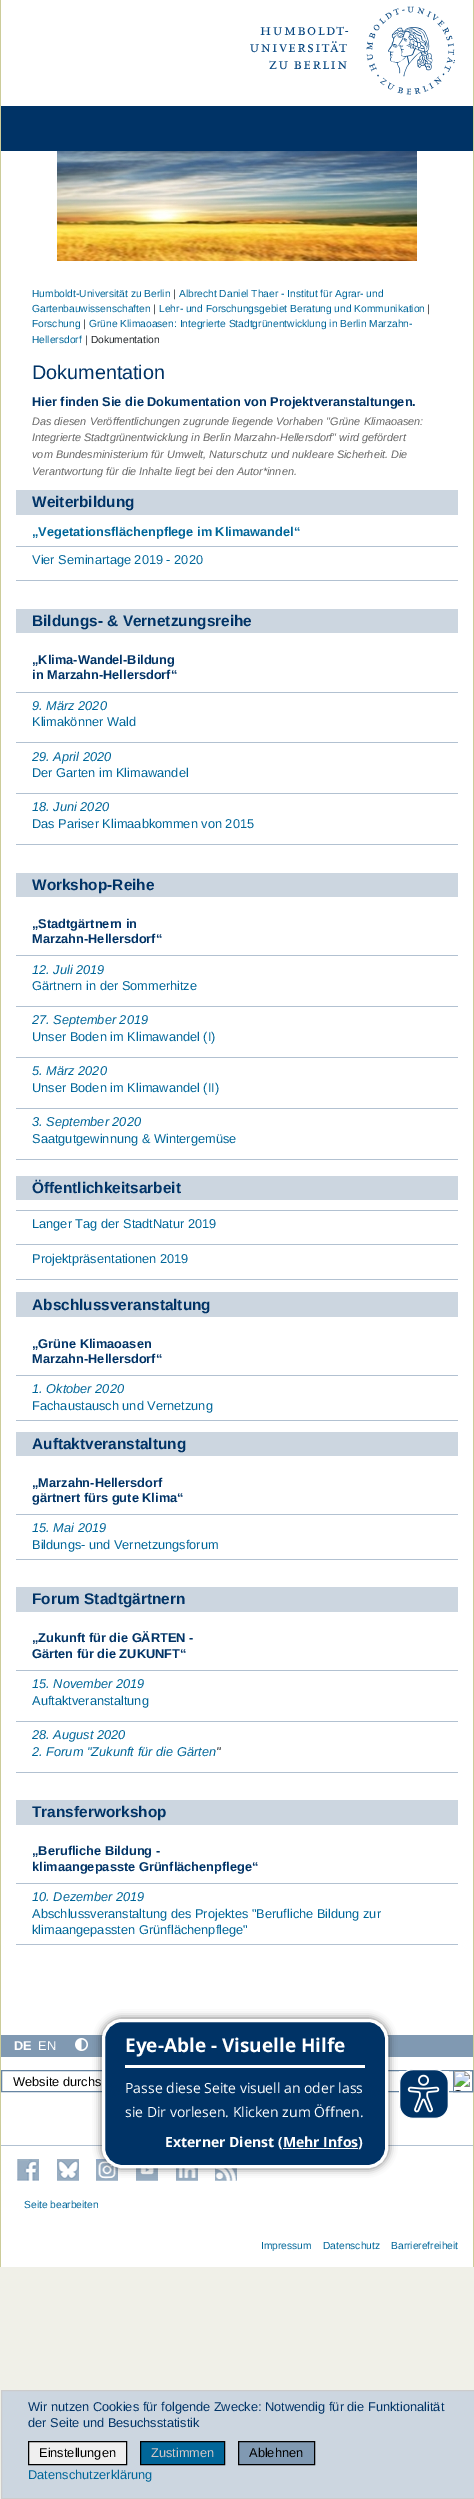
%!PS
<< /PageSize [474 2499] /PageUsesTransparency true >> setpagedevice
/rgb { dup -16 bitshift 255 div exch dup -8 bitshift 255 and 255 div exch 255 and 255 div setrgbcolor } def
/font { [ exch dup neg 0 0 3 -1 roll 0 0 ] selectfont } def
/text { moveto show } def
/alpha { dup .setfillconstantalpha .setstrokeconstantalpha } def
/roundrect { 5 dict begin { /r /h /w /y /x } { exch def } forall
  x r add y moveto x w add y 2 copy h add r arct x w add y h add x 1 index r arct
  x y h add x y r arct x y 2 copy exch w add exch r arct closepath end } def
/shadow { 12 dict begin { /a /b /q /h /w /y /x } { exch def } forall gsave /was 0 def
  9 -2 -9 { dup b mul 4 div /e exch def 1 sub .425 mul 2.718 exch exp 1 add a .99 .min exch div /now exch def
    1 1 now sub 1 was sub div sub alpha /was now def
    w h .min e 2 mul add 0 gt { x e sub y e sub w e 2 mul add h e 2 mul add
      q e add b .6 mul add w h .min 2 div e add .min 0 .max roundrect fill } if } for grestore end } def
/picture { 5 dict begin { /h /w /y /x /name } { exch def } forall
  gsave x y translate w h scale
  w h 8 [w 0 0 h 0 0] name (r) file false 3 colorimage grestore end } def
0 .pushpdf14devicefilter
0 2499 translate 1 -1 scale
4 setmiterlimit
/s1 { /LiberationSans-Regular 10.25 font 16#006699 rgb } def
/s2 { /LiberationSans-Regular 10.25 font 16#212529 rgb } def
/s3 { /LiberationSans-Regular 19.75 font 16#003366 rgb } def
/s4 { /LiberationSans-Bold 12.8 font 16#003366 rgb } def
/s5 { /LiberationSans-Italic 10.9 font 16#666666 rgb } def
/s6 { /LiberationSans-Bold 15.4 font 16#003366 rgb } def
/s7 { /LiberationSans-Bold 12.8 font 16#006699 rgb } def
/s8 { /LiberationSans-Regular 12.8 font 16#006699 rgb } def
/s9 { /LiberationSans-Italic 12.8 font 16#006699 rgb } def
/s10 { /LiberationSans-Italic 12.8 font 16#212529 rgb } def
/s11 { /LiberationSans-Bold 12.8 font 16#FFFFFF rgb } def
/s12 { /LiberationSans-Regular 12.8 font 16#FFFFFF rgb } def
/s13 { /LiberationSans-Regular 12.8 font 16#000000 rgb } def
/s14 { /OpenSans-Bold 19 font 16#FFFFFF rgb } def
/s15 { /OpenSans-Regular 14 font 16#FFFFFF rgb } def
/s16 { /OpenSans-Bold 14 font 16#FFFFFF rgb } def
/s17 { /LiberationSans-Regular 12.8 font 16#003366 rgb } def
/s18 { /LiberationSans-Regular 12.8 font 16#D5C7C7 rgb } def
16#F0F0E8 rgb
0 0 474 2499 rectfill
16#FFFFFF rgb
1 0 472 2267 rectfill
(pic1.raw) 250 6 205 89 picture
16#003366 rgb
1 106 472 45 rectfill
(pic2.raw) 57 151 360 110 picture
16#CCCC99 rgb
473 0 1 2267 rectfill
0 0 1 2267 rectfill
s1
(Humboldt-Universität zu Berlin) 32 297 text
s2
(|) 173 297 text
s1
(Albrecht Daniel Thaer - Institut für Agrar- und) 179 297 text
(Gartenbauwissenschaften) 32 312 text
s2
(|) 153 312 text
s1
(Lehr- und Forschungsgebiet Beratung und Kommunikation) 159 312 text
s2
(|) 427 312 text
s1
(Forschung) 32 327 text
s2
(|) 83 327 text
s1
(Grüne Klimaoasen: Integrierte Stadtgrünentwicklung in Berlin Marzahn-) 89 327 text
(Hellersdorf) 32 343 text
s2
(| Dokumentation) 85 343 text
s3
(Dokumentation) 32 379 text
s4
(Hier finden Sie die Dokumentation von Projektveranstaltungen.) 32 406 text
s5
(Das diesen Veröffentlichungen zugrunde liegende Vorhaben "Grüne Klimaoasen:) 32 425 text
(Integrierte Stadtgrünentwicklung in Berlin Marzahn-Hellersdorf" wird gefördert) 32 441 text
(vom Bundesministerium für Umwelt, Naturschutz und nukleare Sicherheit. Die) 32 458 text
(Verantwortung für die Inhalte liegt bei den Autor*innen.) 32 475 text
16#CCD6E0 rgb
16 490 442 25 rectfill
s6
(Weiterbildung) 32 507 text
16#B2C1D1 rgb
16 546 442 1 rectfill
s7
(„Vegetationsflächenpflege im Klimawandel“) 32 536 text
16#B2C1D1 rgb
16 580 442 1 rectfill
s8
(Vier Seminartage 2019 - 2020) 32 564 text
16#CCD6E0 rgb
16 609 442 24 rectfill
s6
(Bildungs- & Vernetzungsreihe) 32 626 text
16#B2C1D1 rgb
16 692 442 1 rectfill
s4
(„Klima-Wandel-Bildung) 32 664 text
(in Marzahn-Hellersdorf“) 32 679 text
16#B2C1D1 rgb
16 742 442 1 rectfill
s9
(9. März 2020) 32 710 text
s8
(Klimakönner Wald) 32 726 text
16#B2C1D1 rgb
16 793 442 1 rectfill
s9
(29. April 2020) 32 761 text
s8
(Der Garten im Klimawandel) 32 777 text
16#B2C1D1 rgb
16 844 442 1 rectfill
s9
(18. Juni 2020) 32 811 text
s8
(Das Pariser Klimaabkommen von 2015) 32 828 text
16#CCD6E0 rgb
16 873 442 24 rectfill
s6
(Workshop-Reihe) 32 890 text
16#B2C1D1 rgb
16 955 442 1 rectfill
s4
(„Stadtgärtnern in) 32 928 text
(Marzahn-Hellersdorf“) 32 943 text
16#B2C1D1 rgb
16 1006 442 1 rectfill
s9
(12. Juli 2019) 32 974 text
s8
(Gärtnern in der Sommerhitze) 32 990 text
16#B2C1D1 rgb
16 1057 442 1 rectfill
s9
(27. September 2019) 32 1024 text
s8
(Unser Boden im Klimawandel \(I\)) 32 1041 text
16#B2C1D1 rgb
16 1108 442 1 rectfill
s9
(5. März 2020) 32 1075 text
s8
(Unser Boden im Klimawandel \(II\)) 32 1092 text
16#B2C1D1 rgb
16 1159 442 1 rectfill
s9
(3. September 2020) 32 1126 text
s8
(Saatgutgewinnung & Wintergemüse) 32 1143 text
16#B2C1D1 rgb
16 1210 442 1 rectfill
16#CCD6E0 rgb
16 1176 442 24 rectfill
s6
(Öffentlichkeitsarbeit) 32 1193 text
16#B2C1D1 rgb
16 1244 442 1 rectfill
s8
(Langer Tag der StadtNatur 2019) 32 1228 text
16#B2C1D1 rgb
16 1279 442 1 rectfill
s8
(Projektpräsentationen 2019) 32 1263 text
16#CCD6E0 rgb
16 1292 442 25 rectfill
s6
(Abschlussveranstaltung) 32 1310 text
16#B2C1D1 rgb
16 1375 442 1 rectfill
s4
(„Grüne Klimaoasen) 32 1348 text
(Marzahn-Hellersdorf“) 32 1363 text
16#B2C1D1 rgb
16 1420 442 1 rectfill
s9
(1. Oktober 2020) 32 1393 text
s8
(Fachaustausch und Vernetzung) 32 1410 text
16#CCD6E0 rgb
16 1432 442 24 rectfill
s6
(Auftaktveranstaltung) 32 1449 text
16#B2C1D1 rgb
16 1514 442 1 rectfill
s4
(„Marzahn-Hellersdorf) 32 1487 text
(gärtnert fürs gute Klima“) 32 1502 text
16#B2C1D1 rgb
16 1559 442 1 rectfill
s9
(15. Mai 2019) 32 1532 text
s8
(Bildungs- und Vernetzungsforum) 32 1549 text
16#CCD6E0 rgb
16 1587 442 25 rectfill
s6
(Forum Stadtgärtnern) 32 1604 text
16#B2C1D1 rgb
16 1670 442 1 rectfill
s4
(„Zukunft für die GÄRTEN -) 32 1642 text
(Gärten für die ZUKUNFT“) 32 1658 text
16#B2C1D1 rgb
16 1721 442 1 rectfill
s9
(15. November 2019) 32 1688 text
s8
(Auftaktveranstaltung) 32 1705 text
16#B2C1D1 rgb
16 1772 442 1 rectfill
s9
(28. August 2020) 32 1739 text
(2. Forum "Zukunft für die Gärten) 32 1756 text
s10
(") 216 1756 text
16#CCD6E0 rgb
16 1800 442 25 rectfill
s6
(Transferworkshop) 32 1817 text
16#B2C1D1 rgb
16 1883 442 1 rectfill
s4
(„Berufliche Bildung -) 32 1855 text
(klimaangepasste Grünflächenpflege“) 32 1871 text
16#B2C1D1 rgb
16 1944 442 1 rectfill
s9
(10. Dezember 2019) 32 1901 text
s8
(Abschlussveranstaltung des Projektes "Berufliche Bildung zur) 32 1918 text
(klimaangepassten Grünflächenpflege") 32 1934 text
16#8099B2 rgb
1 2035 472 22 rectfill
s11
(DE) 14 2050 text
s12
(EN) 38 2050 text
(pic3.raw) 75 2038 13 13 picture
16#6685A3 rgb
1.5 2070.5 471 21 rectstroke
s13
(Website durchs) 13 2086 text
16#6685A3 rgb
453.5 2070.5 19 21 rectstroke
(pic4.raw) 454 2071 16 20 picture
16#B2C1D1 rgb
1 2145 472 1 rectfill
(pic8.raw) 96 2159 22 22 picture
(pic9.raw) 136 2168 22 13 picture
(pic10.raw) 176 2168 22 13 picture
(pic11.raw) 215 2168 22 13 picture
16#000000 rgb
101 2018 288 151 21 4 0.5 shadow
16#003366 rgb
103.5 2020.5 283 146 18.5 roundrect gsave fill grestore
16#FFFFFF rgb
3 setlinewidth
stroke
125 2065 240 3 rectfill
s14
(Eye-Able - Visuelle Hilfe) 125 2052 text
s15
(Passe diese Seite visuell an oder lass) 125 2093 text
(sie Dir vorlesen. Klicken zum Öffnen.) 125 2117 text
s16
(Externer Dienst \(Mehr Infos\)) 165 2147 text
283 2148 75 1 rectfill
(pic5.raw) 399 2069 50 50 picture
(pic6.raw) 17 2159 22 22 picture
(pic7.raw) 57 2159 22 22 picture
s1
(Seite bearbeiten) 24 2208 text
(Impressum) 261 2249 text
(Datenschutz) 323 2249 text
(Barrierefreiheit) 391 2249 text
16#CCD6E0 rgb
1.5 2390.5 moveto 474.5 2390.5 lineto 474.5 2498.5 lineto 1.5 2498.5 lineto closepath gsave fill grestore
16#CCCCCC rgb
1 setlinewidth
stroke
s17
(Wir nutzen Cookies für folgende Zwecke: Notwendig für die Funktionalität) 28 2411 text
(der Seite und Besuchsstatistik) 28 2427 text
16#EFEFEF rgb
28.5 2441.5 moveto 126.5 2441.5 lineto 126.5 2464.5 lineto 28.5 2464.5 lineto closepath gsave fill grestore
16#000000 rgb
stroke
(Einstellungen) 39 2457 text
16#006699 rgb
140.5 2441.5 moveto 224.5 2441.5 lineto 224.5 2464.5 lineto 140.5 2464.5 lineto closepath gsave fill grestore
16#000000 rgb
stroke
s18
(Zustimmen) 151 2457 text
16#8099B2 rgb
238.5 2441.5 moveto 314.5 2441.5 lineto 314.5 2464.5 lineto 238.5 2464.5 lineto closepath gsave fill grestore
16#000000 rgb
stroke
(Ablehnen) 249 2457 text
s8
(Datenschutzerklärung) 28 2479 text
.poppdf14devicefilter showpage
